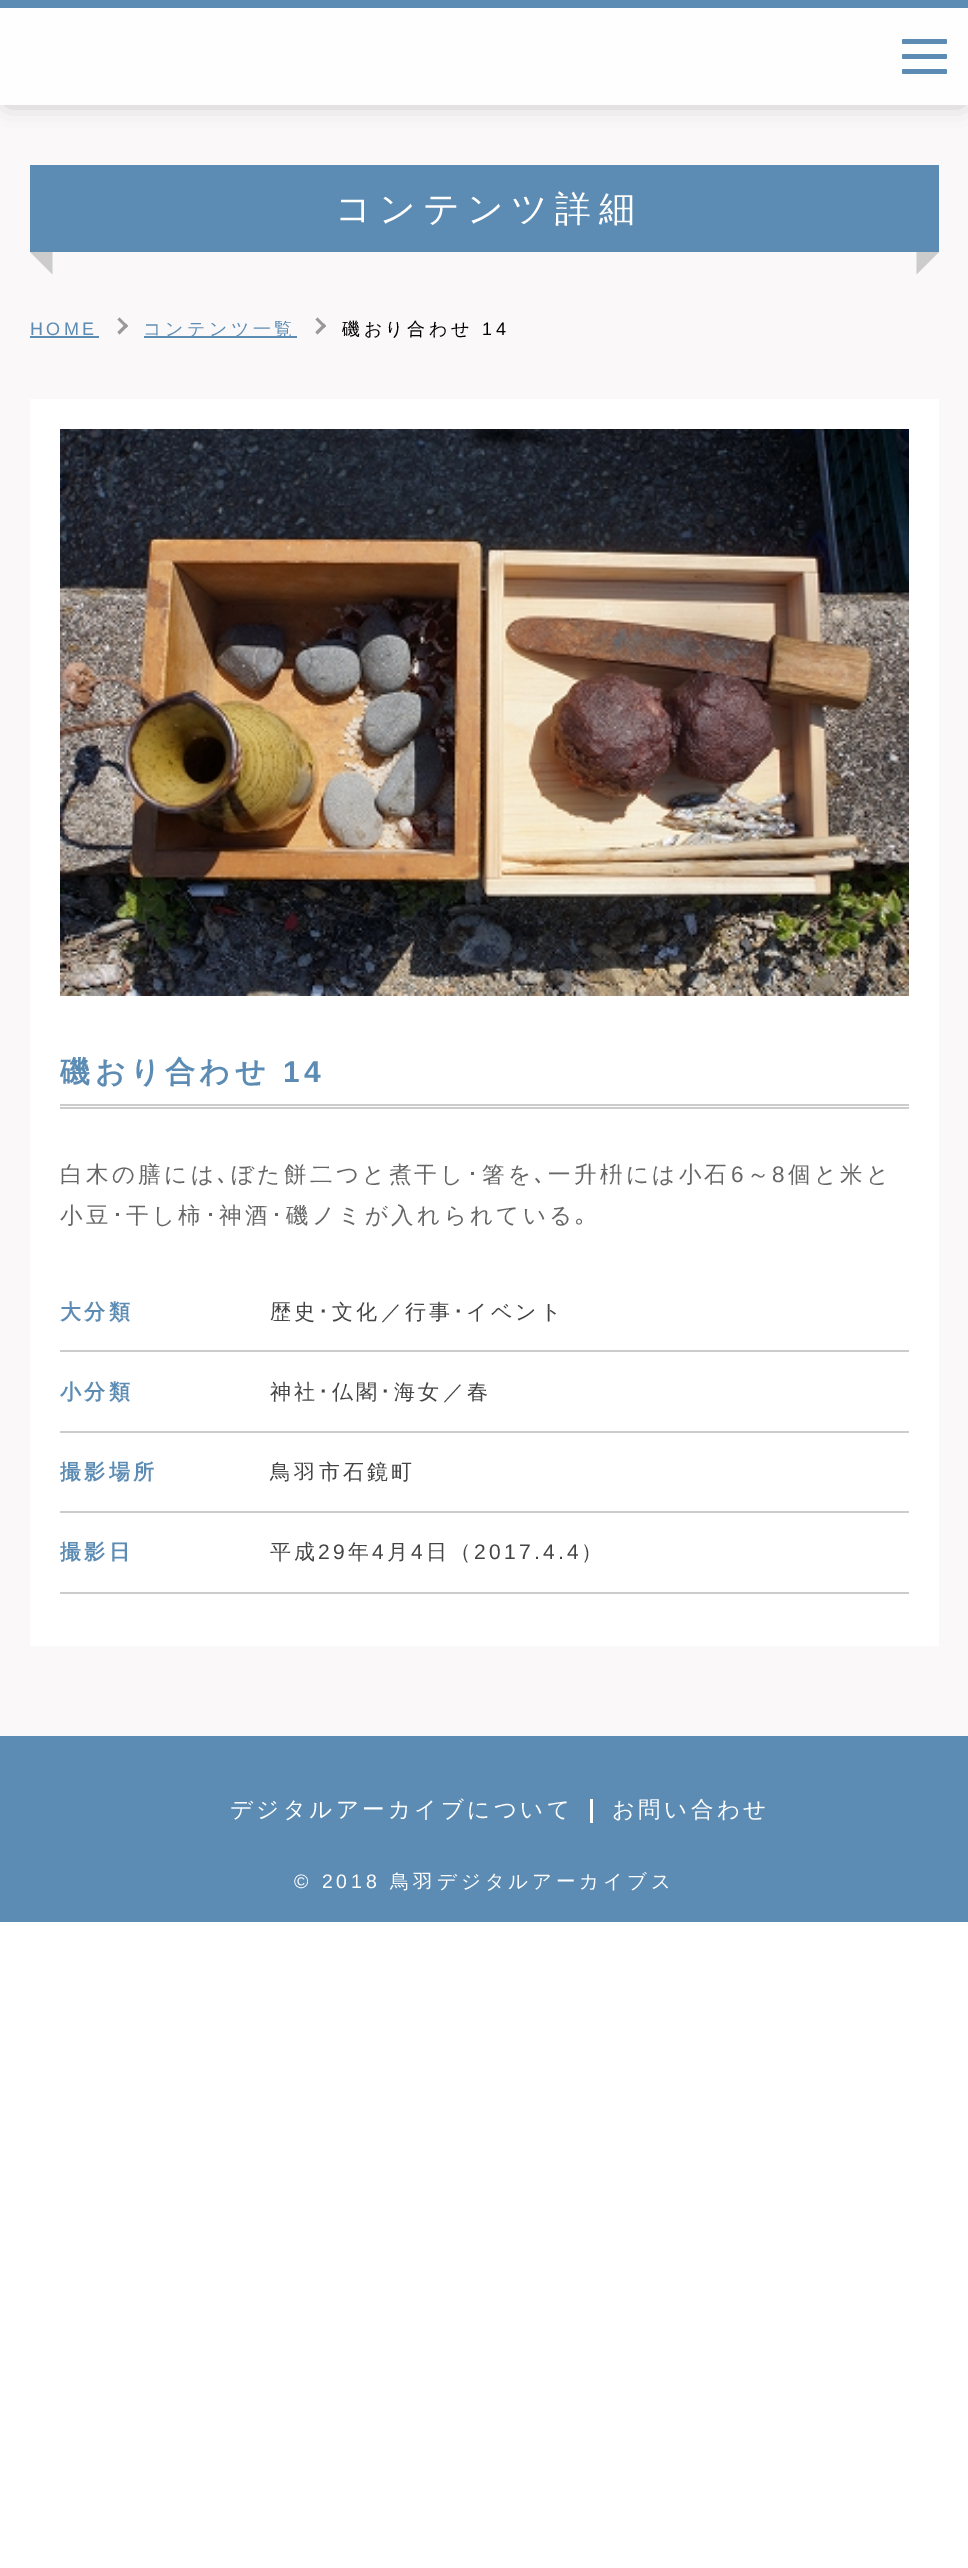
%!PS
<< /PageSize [968 2568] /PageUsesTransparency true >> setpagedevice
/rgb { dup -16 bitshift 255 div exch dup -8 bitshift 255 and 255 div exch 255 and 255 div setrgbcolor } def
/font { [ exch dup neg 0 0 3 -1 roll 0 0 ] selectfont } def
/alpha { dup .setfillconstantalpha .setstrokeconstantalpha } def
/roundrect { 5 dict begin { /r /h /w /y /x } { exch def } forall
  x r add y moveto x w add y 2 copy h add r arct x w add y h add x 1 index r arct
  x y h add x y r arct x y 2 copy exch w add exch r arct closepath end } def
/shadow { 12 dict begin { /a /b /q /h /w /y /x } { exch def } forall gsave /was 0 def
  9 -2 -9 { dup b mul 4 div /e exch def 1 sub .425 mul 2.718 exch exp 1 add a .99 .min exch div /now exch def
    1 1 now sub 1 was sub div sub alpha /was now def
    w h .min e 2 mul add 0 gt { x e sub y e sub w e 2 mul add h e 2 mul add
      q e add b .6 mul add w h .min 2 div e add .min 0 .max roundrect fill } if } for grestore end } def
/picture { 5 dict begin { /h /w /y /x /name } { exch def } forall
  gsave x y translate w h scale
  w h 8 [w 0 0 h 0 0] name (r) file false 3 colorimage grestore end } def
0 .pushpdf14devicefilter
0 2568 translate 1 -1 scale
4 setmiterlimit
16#FFFFFF rgb
0 0 968 2568 rectfill
16#FAF8F8 rgb
0 105 968 1631 rectfill
16#000000 rgb
8 11 954 90 0 12 0.3 shadow
16#FFFEFE rgb
0 8 968 97 rectfill
16#5C8BB3 rgb
0 0 968 8 rectfill
902 39 45 5 1.5 roundrect fill
902 54 45 5 1.5 roundrect fill
902 69 45 5 1.5 roundrect fill
30 165 909 87 rectfill
/WenQuanYiZenHei-Medium 36 font
16#FFFFFF rgb
335 221 moveto 7.25 0 (コンテンツ詳細) ashow
16#CCCCCC rgb
52.5 252 moveto 52.5 274.5 lineto 30 252 lineto closepath fill
916.5 252 moveto 939 252 lineto 916.5 274.5 lineto closepath fill
/LiberationSans-Regular 18 font
16#5C8BB3 rgb
30 335 moveto 3.5 0 (HOME) ashow
30 336 69 2 rectfill
16#999999 rgb
117.5 319.5 moveto 119.5 317.5 lineto 128 326 lineto 126 328 lineto closepath fill
117.5 332 moveto 126 323.5 lineto 128 326 lineto 119.5 334.5 lineto closepath fill
16#5C8BB3 rgb
144 336 153 2 rectfill
/WenQuanYiZenHei-Medium 18 font
143 335 moveto 3.5 0 (コンテンツ一覧) ashow
16#999999 rgb
315.5 319.5 moveto 317.5 317.5 lineto 326 326 lineto 324 328 lineto closepath fill
315.5 332 moveto 324 323.5 lineto 326 326 lineto 317.5 334.5 lineto closepath fill
16#000000 rgb
342 335 moveto 3.5 0 (磯おり合わせ) ashow
/LiberationSans-Regular 18 font
482 335 moveto 3.5 0 (14) ashow
16#FFFFFF rgb
30 399 909 1247 rectfill
(pic1.raw) 60 429 849 567 picture
16#CCCCCC rgb
60 1104 849 2 rectfill
60 1107 849 2 rectfill
/WenQuanYiZenHei-Bold 30 font
16#5C8BB3 rgb
60 1082 moveto 4.5 0 (磯おり合わせ) ashow
/LiberationSans-Bold 30 font
283 1082 moveto 4.5 0 (14) ashow
/WenQuanYiZenHei-Medium 22.5 font
16#666666 rgb
60 1182 moveto 3.4 0 (白木の膳には) ashow
231 1182 moveto 3.4 0 (ぼた餅二つと煮干し) ashow
/IPAPGothic-Regular 22.5 font
467 1182 moveto 3.4 0 (･) ashow
/WenQuanYiZenHei-Medium 22.5 font
482 1182 moveto 3.4 0 (箸を) ashow
548 1182 moveto 3.4 0 (一升枡には小石) ashow
/LiberationSans-Regular 22.5 font
731 1182 moveto 3.4 0 (6) ashow
/WenQuanYiZenHei-Medium 22.5 font
747 1182 moveto 3.4 0 (～) ashow
/LiberationSans-Regular 22.5 font
772 1182 moveto 3.4 0 (8) ashow
/WenQuanYiZenHei-Medium 22.5 font
788 1182 moveto 3.4 0 (個と米と) ashow
/IPAPGothic-Regular 22.5 font
217 1182 moveto 3.4 0 (､) ashow
534 1182 moveto 3.4 0 (､) ashow
/WenQuanYiZenHei-Medium 22.5 font
60 1223 moveto 3.4 0 (小豆) ashow
/IPAPGothic-Regular 22.5 font
112 1223 moveto 3.4 0 (･) ashow
/WenQuanYiZenHei-Medium 22.5 font
126 1223 moveto 3.4 0 (干し柿) ashow
/IPAPGothic-Regular 22.5 font
205 1223 moveto 3.4 0 (･) ashow
/WenQuanYiZenHei-Medium 22.5 font
219 1223 moveto 3.4 0 (神酒) ashow
/IPAPGothic-Regular 22.5 font
271 1223 moveto 3.4 0 (･) ashow
/WenQuanYiZenHei-Medium 22.5 font
286 1223 moveto 3.4 0 (磯ノミが入れられている) ashow
/IPAPGothic-Regular 22.5 font
575 1223 moveto 3.4 0 (｡) ashow
16#CCCCCC rgb
60 1350 849 2 rectfill
/WenQuanYiZenHei-Bold 21 font
16#5C8BB3 rgb
60 1319 moveto 3.25 0 (大分類) ashow
/WenQuanYiZenHei-Medium 21 font
16#444444 rgb
270 1319 moveto 3.25 0 (歴史) ashow
/IPAPGothic-Regular 21 font
318 1319 moveto 3.25 0 (･) ashow
/WenQuanYiZenHei-Medium 21 font
332 1319 moveto 3.25 0 (文化／行事) ashow
/IPAPGothic-Regular 21 font
453 1319 moveto 3.25 0 (･) ashow
/WenQuanYiZenHei-Medium 21 font
466 1319 moveto 3.25 0 (イベント) ashow
16#CCCCCC rgb
60 1431 849 2 rectfill
/WenQuanYiZenHei-Bold 21 font
16#5C8BB3 rgb
60 1399 moveto 3.25 0 (小分類) ashow
/WenQuanYiZenHei-Medium 21 font
16#444444 rgb
270 1399 moveto 3.25 0 (神社) ashow
/IPAPGothic-Regular 21 font
318 1399 moveto 3.25 0 (･) ashow
/WenQuanYiZenHei-Medium 21 font
332 1399 moveto 3.25 0 (仏閣) ashow
/IPAPGothic-Regular 21 font
380 1399 moveto 3.25 0 (･) ashow
/WenQuanYiZenHei-Medium 21 font
394 1399 moveto 3.25 0 (海女／春) ashow
16#CCCCCC rgb
60 1511 849 2 rectfill
/WenQuanYiZenHei-Bold 21 font
16#5C8BB3 rgb
60 1479 moveto 3.25 0 (撮影場所) ashow
/WenQuanYiZenHei-Medium 21 font
16#444444 rgb
270 1479 moveto 3.25 0 (鳥羽市石鏡町) ashow
16#CCCCCC rgb
60 1592 849 2 rectfill
/WenQuanYiZenHei-Bold 21 font
16#5C8BB3 rgb
60 1559 moveto 3.25 0 (撮影日) ashow
/WenQuanYiZenHei-Medium 21 font
16#444444 rgb
270 1559 moveto 3.25 0 (平成) ashow
/LiberationSans-Regular 21 font
318 1559 moveto 3.25 0 (29) ashow
/WenQuanYiZenHei-Medium 21 font
348 1559 moveto 3.25 0 (年) ashow
/LiberationSans-Regular 21 font
372 1559 moveto 3.25 0 (4) ashow
/WenQuanYiZenHei-Medium 21 font
387 1559 moveto 3.25 0 (月) ashow
/LiberationSans-Regular 21 font
411 1559 moveto 3.25 0 (4) ashow
/WenQuanYiZenHei-Medium 21 font
426 1559 moveto 3.25 0 (日（) ashow
/LiberationSans-Regular 21 font
474 1559 moveto 3.25 0 (2017.4.4) ashow
/WenQuanYiZenHei-Medium 21 font
581 1559 moveto 3.25 0 (）) ashow
16#5C8BB3 rgb
0 1736 968 186 rectfill
/WenQuanYiZenHei-Medium 22.5 font
16#FFFFFF rgb
230 1817 moveto 3.4 0 (デジタルアーカイブについて) ashow
590 1799 3 24 rectfill
612 1817 moveto 3.4 0 (お問い合わせ) ashow
/LiberationSans-Regular 19.5 font
294 1888 moveto 3.9 0 (© 2018) ashow
/WenQuanYiZenHei-Medium 19.5 font
390 1888 moveto 3.9 0 (鳥羽デジタルアーカイブス) ashow
.poppdf14devicefilter showpage
